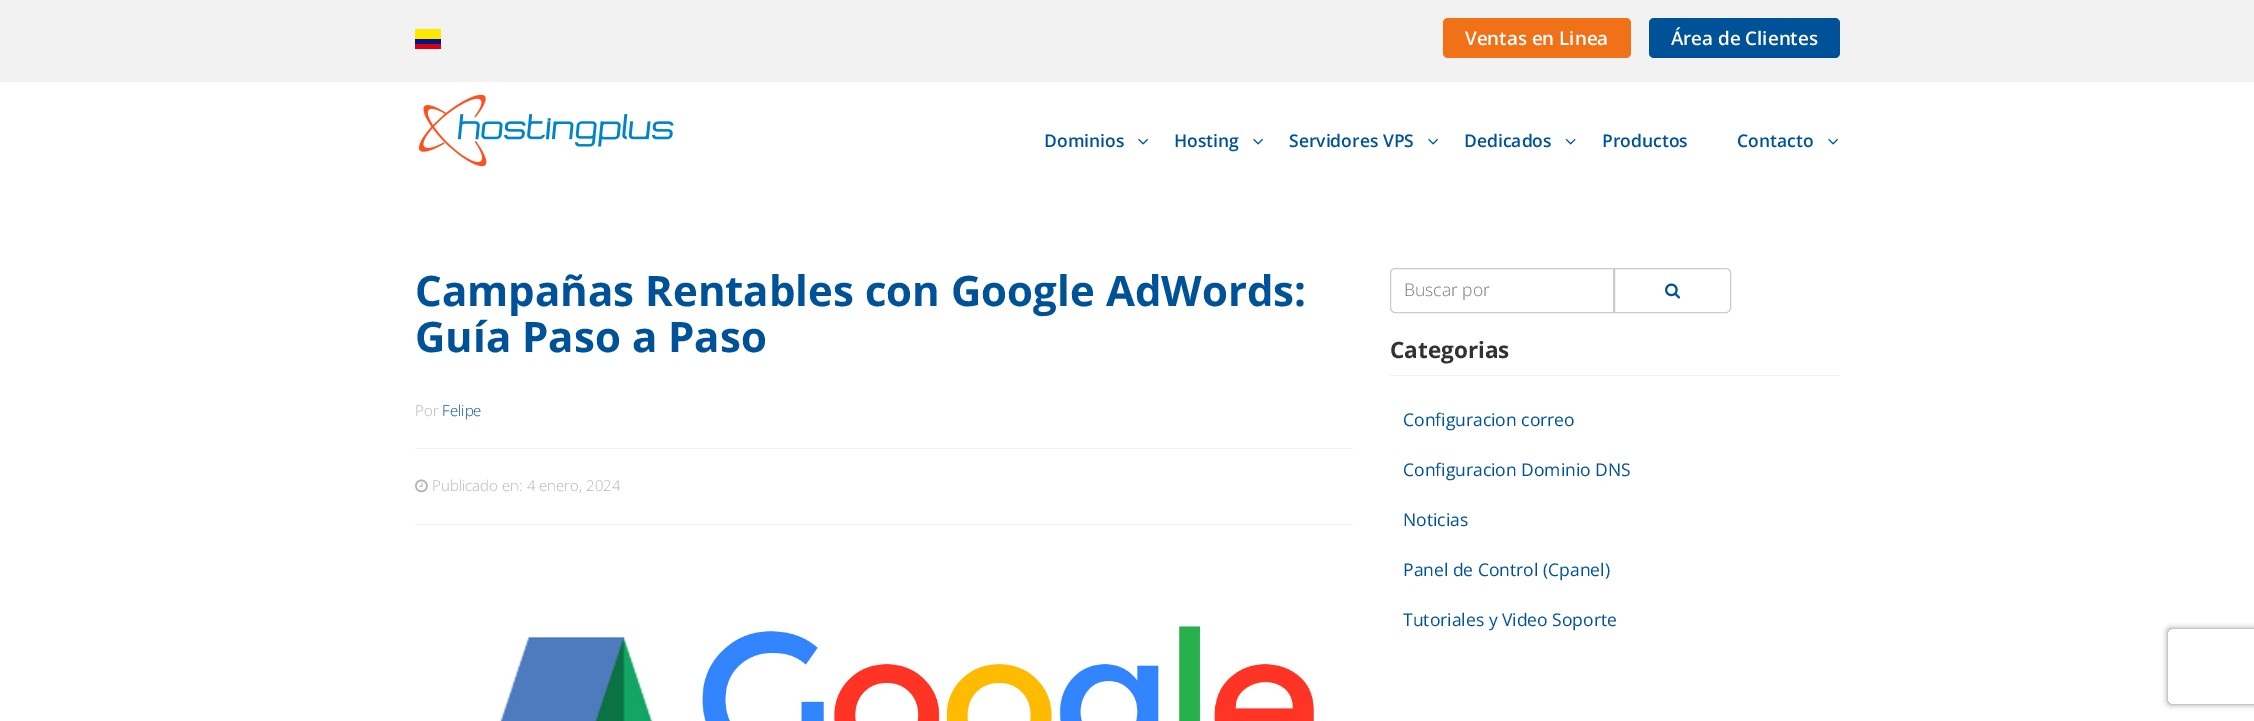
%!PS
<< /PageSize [2254 721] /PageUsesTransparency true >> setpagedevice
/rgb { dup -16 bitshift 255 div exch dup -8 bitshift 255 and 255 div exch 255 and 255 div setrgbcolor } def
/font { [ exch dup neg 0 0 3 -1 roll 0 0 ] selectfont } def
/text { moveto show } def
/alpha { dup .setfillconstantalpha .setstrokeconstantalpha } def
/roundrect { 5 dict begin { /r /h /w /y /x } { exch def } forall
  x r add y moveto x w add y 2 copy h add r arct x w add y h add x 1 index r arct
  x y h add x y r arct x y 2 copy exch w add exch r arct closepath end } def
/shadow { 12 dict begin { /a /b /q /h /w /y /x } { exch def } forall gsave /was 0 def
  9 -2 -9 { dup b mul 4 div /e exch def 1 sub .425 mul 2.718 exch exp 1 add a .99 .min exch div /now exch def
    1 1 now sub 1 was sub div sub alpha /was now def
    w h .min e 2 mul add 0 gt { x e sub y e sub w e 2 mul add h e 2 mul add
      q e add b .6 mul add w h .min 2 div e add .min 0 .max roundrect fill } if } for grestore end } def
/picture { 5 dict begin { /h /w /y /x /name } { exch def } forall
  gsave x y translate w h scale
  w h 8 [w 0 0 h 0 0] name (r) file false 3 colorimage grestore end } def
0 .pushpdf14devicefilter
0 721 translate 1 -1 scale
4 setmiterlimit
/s1 { /OpenSans-SemiBold 18.75 font 16#FFFFFF rgb } def
/s2 { /OpenSans-SemiBold 17.5 font 16#005298 rgb } def
/s3 { /OpenSans-Bold 42 font 16#005298 rgb } def
/s4 { /OpenSans-Light 15 font 16#B3B3B3 rgb } def
/s5 { /OpenSans-Light 15 font 16#005298 rgb } def
/s6 { /OpenSans-Light 17.5 font 16#777777 rgb } def
/s7 { /OpenSans-Bold 22.5 font 16#323232 rgb } def
/s8 { /OpenSans-Regular 17.5 font 16#005298 rgb } def
16#FFFFFF rgb
0 0 2254 721 rectfill
16#F2F2F2 rgb
0 0 2254 82 rectfill
16#FFE800 rgb
415 29 26 10 rectfill
16#00148E rgb
415 39 26 5 rectfill
16#DA0010 rgb
415 44 26 5 rectfill
16#F07118 rgb
1443 18 188 40 5 roundrect fill
s1
(Ventas en Linea) 1465 45 text
16#005298 rgb
1649 18 191 40 5 roundrect fill
s1
(Área de Clientes) 1671 45 text
(pic1.raw) 418 94 256 73 picture
s2
(Dominios) 1044 147 text
(pic2.raw) 1138 138 10 7 picture
(Hosting) 1174 147 text
(pic2.raw) 1253 138 10 7 picture
(Servidores VPS) 1289 147 text
(pic2.raw) 1428 138 10 7 picture
(Dedicados) 1464 147 text
(pic3.raw) 1565 138 11 7 picture
(Productos) 1602 147 text
(Contacto) 1737 147 text
(pic2.raw) 1828 138 10 7 picture
16#F2F2F2 rgb
415 448 938 1 rectfill
s3
(Campañas Rentables con Google AdWords:) 415 306 text
(Guía Paso a Paso) 415 352 text
s4
(Por) 415 416 text
s5
(Felipe) 442 416 text
16#F2F2F2 rgb
415 524 938 1 rectfill
(pic4.raw) 415 479 13 14 picture
s4
(Publicado en: 4 enero, 2024) 432 491 text
(pic5.raw) 500 626 814 95 picture
16#CCCCCC rgb
1395 268.5 moveto 1613.5 268.5 lineto 1613.5 312.5 lineto 1395 312.5 lineto 1392.5 312.5 1390.5 310.5 1390.5 308 curveto 1390.5 273 lineto 1390.5 270.5 1392.5 268.5 1395 268.5 curveto closepath stroke
s6
(Buscar por) 1404 296 text
16#CCCCCC rgb
1614.5 268.5 moveto 1726 268.5 lineto 1728.5 268.5 1730.5 270.5 1730.5 273 curveto 1730.5 308 lineto 1730.5 310.5 1728.5 312.5 1726 312.5 curveto 1614.5 312.5 lineto closepath stroke
(pic6.raw) 1665 283 16 16 picture
16#F2F2F2 rgb
1390 375 450 1 rectfill
s7
(Categorias) 1390 358 text
s8
(Configuracion correo) 1403 426 text
(Configuracion Dominio DNS) 1403 476 text
(Noticias) 1403 526 text
(Panel de Control \(Cpanel\)) 1403 576 text
(Tutoriales y Video Soporte) 1403 626 text
gsave
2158 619 moveto 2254 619 lineto 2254 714 lineto 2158 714 lineto closepath 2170.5 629 moveto 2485.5 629 lineto 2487 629 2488 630 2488 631.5 curveto 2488 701.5 lineto 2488 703 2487 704 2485.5 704 curveto 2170.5 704 lineto 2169 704 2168 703 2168 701.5 curveto 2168 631.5 lineto 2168 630 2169 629 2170.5 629 curveto closepath eoclip newpath
16#808080 rgb
2168 629 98 75 2.5 3 1 shadow
grestore
.poppdf14devicefilter showpage
